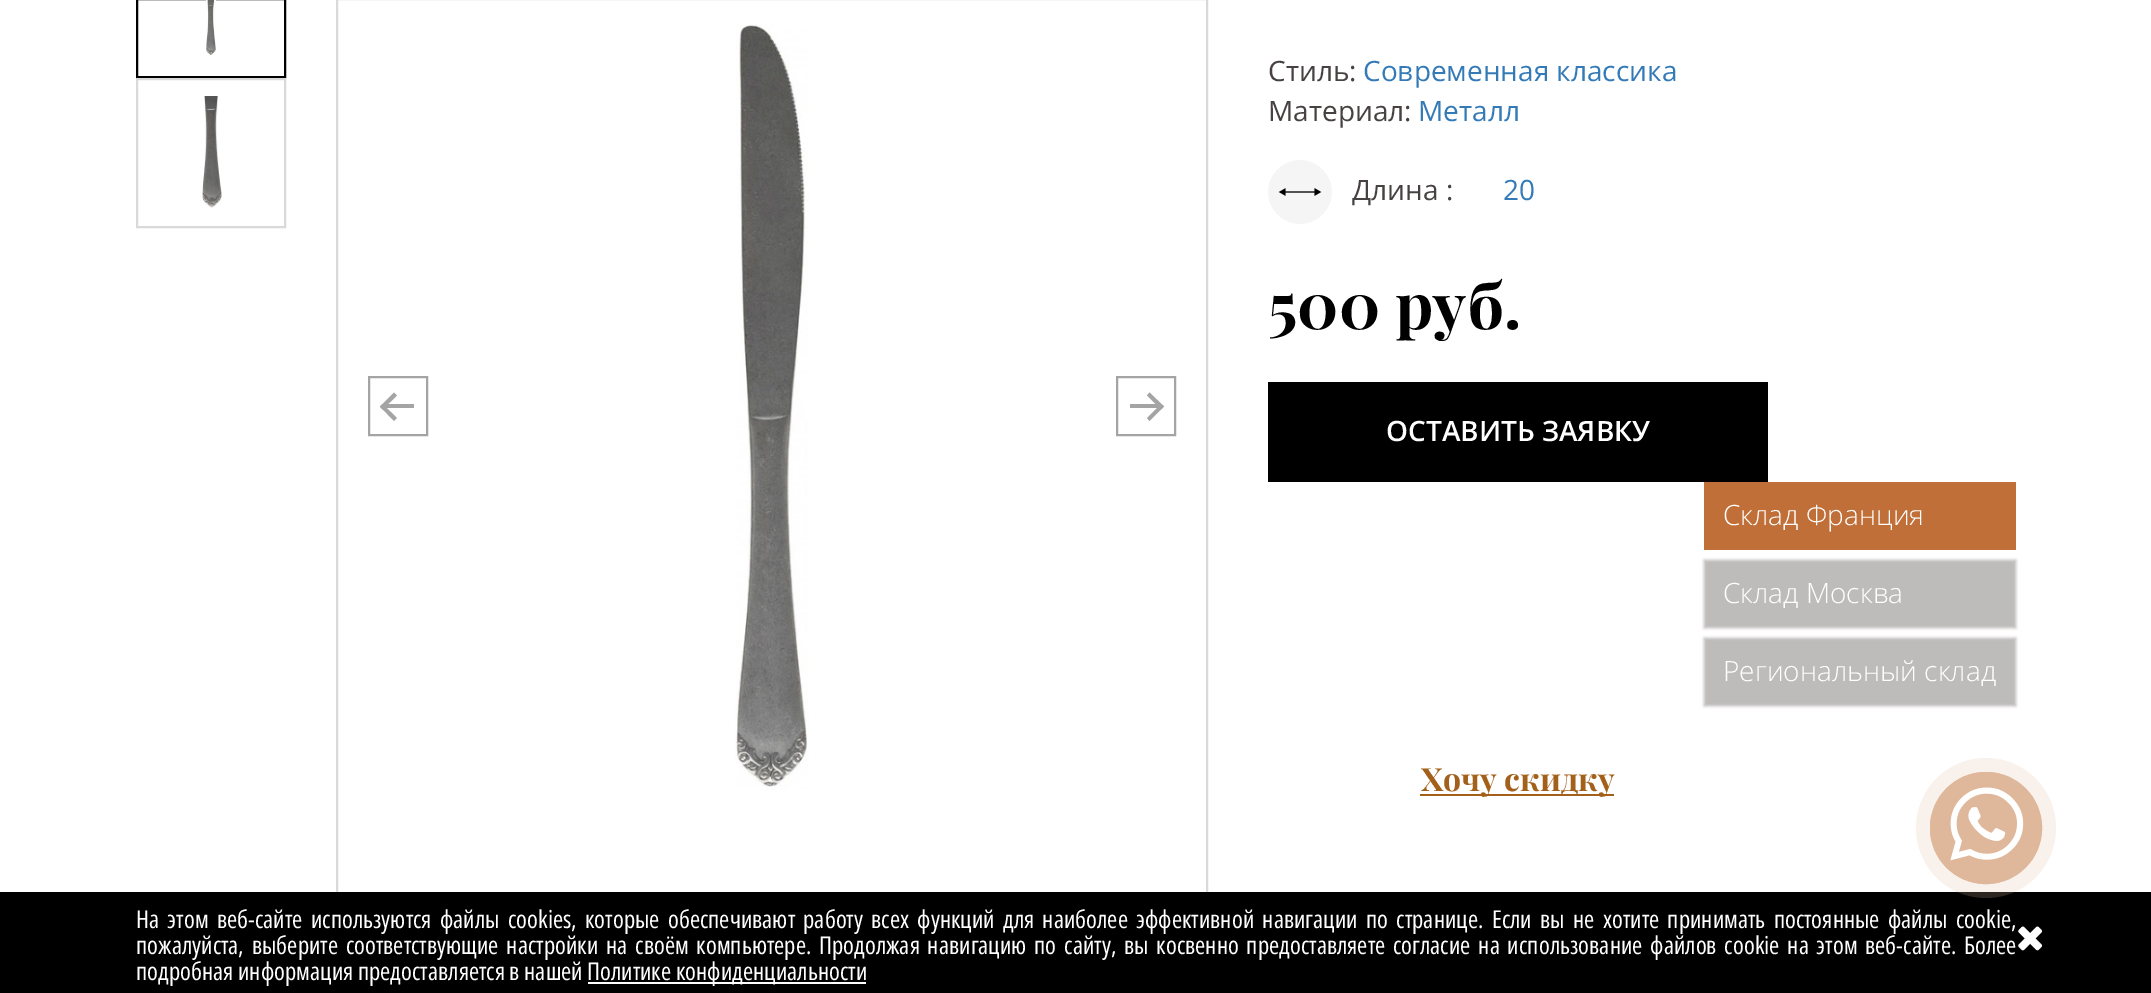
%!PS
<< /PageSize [2151 993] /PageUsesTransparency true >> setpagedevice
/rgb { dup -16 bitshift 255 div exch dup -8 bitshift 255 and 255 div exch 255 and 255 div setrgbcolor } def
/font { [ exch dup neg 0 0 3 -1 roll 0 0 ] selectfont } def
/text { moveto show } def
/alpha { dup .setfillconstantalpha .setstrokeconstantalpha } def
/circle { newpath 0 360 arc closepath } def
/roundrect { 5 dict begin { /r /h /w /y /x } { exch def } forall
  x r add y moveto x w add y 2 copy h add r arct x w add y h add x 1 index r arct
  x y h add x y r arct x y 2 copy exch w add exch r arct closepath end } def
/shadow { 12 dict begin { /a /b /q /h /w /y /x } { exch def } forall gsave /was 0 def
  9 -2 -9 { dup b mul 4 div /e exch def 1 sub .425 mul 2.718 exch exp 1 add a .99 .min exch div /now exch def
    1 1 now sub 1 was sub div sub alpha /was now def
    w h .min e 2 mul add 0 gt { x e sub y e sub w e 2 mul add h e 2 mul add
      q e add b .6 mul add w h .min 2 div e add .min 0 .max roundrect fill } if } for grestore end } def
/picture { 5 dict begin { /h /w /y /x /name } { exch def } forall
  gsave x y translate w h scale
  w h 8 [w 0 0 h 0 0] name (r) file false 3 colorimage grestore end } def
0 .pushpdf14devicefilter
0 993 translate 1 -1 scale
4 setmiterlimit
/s1 { /OpenSans-Regular 28 font 16#474141 rgb } def
/s2 { /OpenSans-Regular 28 font 16#337AB7 rgb } def
/s3 { /PlayfairDisplay-Bold 64 font 16#010101 rgb } def
/s4 { /OpenSans-SemiBold 28 font 16#FFFFFF rgb } def
/s5 { /OpenSans-Light 28 font 16#FFFFFF rgb } def
/s6 { /PlayfairDisplay-Bold 32 font 16#A3601A rgb } def
/s7 { /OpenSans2-Regular 24.65 font 16#FFFFFF rgb } def
16#FFFFFF rgb
0 0 2151 993 rectfill
16#000000 rgb
2 setlinewidth
137 -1 148 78 rectstroke
(pic1.raw) 206 0 10 55 picture
16#D9D9D9 rgb
137 79 148 148 rectstroke
(pic2.raw) 202 96 20 112 picture
337 -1 870 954 rectstroke
16#A4A4A4 rgb
369 377 58 58 rectstroke
382.5 404 moveto 397 418 lineto 394 421 lineto 380 406.5 lineto closepath fill
394 392.5 moveto 397 395.5 lineto 382.5 409.5 lineto 380 406.5 lineto closepath fill
384 404 30 4 rectfill
(pic3.raw) 735 24 74 766 picture
1117 377 58 58 rectstroke
1149.5 392.5 moveto 1164 406.5 lineto 1161 409.5 lineto 1147 395.5 lineto closepath fill
1161 404 moveto 1164 406.5 lineto 1149.5 421 lineto 1147 418 lineto closepath fill
1130 404 30 4 rectfill
s1
(Стиль:) 1268 81 text
s2
(Современная классика) 1363 81 text
s1
(Материал:) 1268 121 text
s2
(Металл) 1418 121 text
(pic4.raw) 1268 160 64 64 picture
s1
(Длина :) 1352 200 text
s2
(20) 1503 200 text
s3
(500 руб.) 1268 329 text
16#000000 rgb
1268 382 500 100 rectfill
s4
(ОСТАВИТЬ ЗАЯВКУ) 1386 441 text
16#C06F38 rgb
1704 482 312 68 rectfill
s5
(Склад Франция) 1723 525 text
16#BCB9B9 rgb
1704 560 312 68 0 1.5 1 shadow
s5
(Склад Москва) 1723 603 text
16#BCB9B9 rgb
1704 638 312 68 0 1.5 1 shadow
s5
(Региональный склад) 1723 681 text
16#A3601A rgb
1420 794 194 2 rectfill
s6
(Хочу скидку) 1421 791 text
16#000000 rgb
0 892 2151 101 rectfill
0.2 alpha
16#DFB79B rgb
1986 828 70 circle fill
1 alpha
1986 828 55 circle stroke
1986 828 56 circle fill
(pic5.raw) 1950 787 74 74 picture
/OpenSans2-Regular 24.65 font
16#FFFFFF rgb
136 928 moveto 3.7 0 32 (На этом веб-сайте используются файлы cookies, которые обеспечивают работу всех функций для наиболее эффективной навигации по странице. Если вы не хотите принимать постоянные файлы cookie,) widthshow
136 954 moveto 3.2 0 32 (пожалуйста, выберите соответствующие настройки на своём компьютере. Продолжая навигацию по сайту, вы косвенно предоставляете согласие на использование файлов cookie на этом веб-сайте. Более) widthshow
(подробная информация предоставляется в нашей) 136 980 text
588 982 278 2 rectfill
(Политике конфиденциальности) 587 980 text
(pic6.raw) 2018 926 25 25 picture
.poppdf14devicefilter showpage
